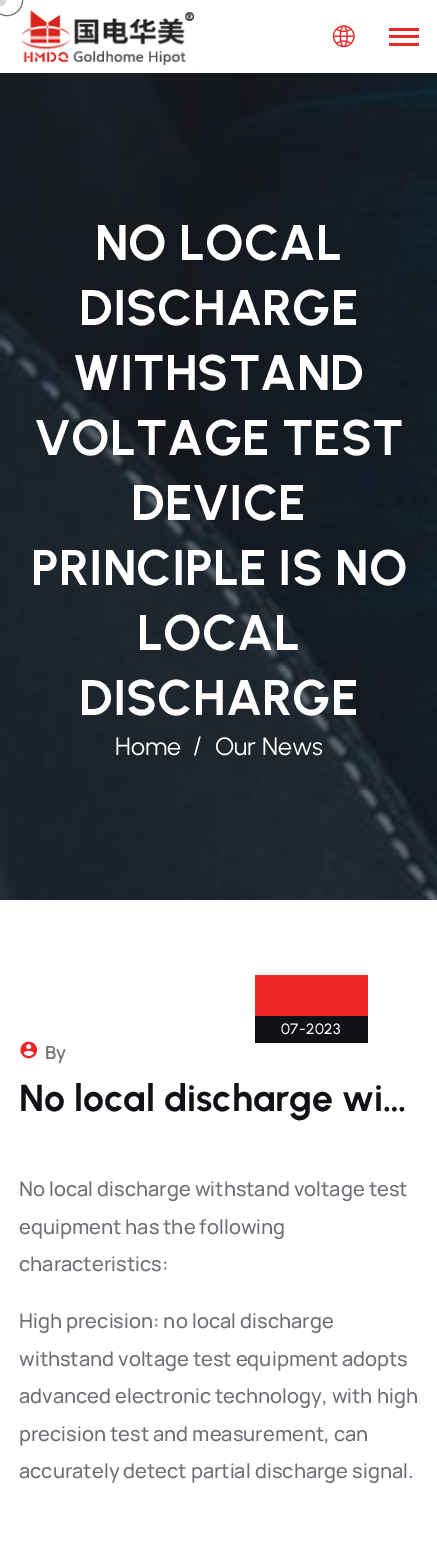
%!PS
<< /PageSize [437 1562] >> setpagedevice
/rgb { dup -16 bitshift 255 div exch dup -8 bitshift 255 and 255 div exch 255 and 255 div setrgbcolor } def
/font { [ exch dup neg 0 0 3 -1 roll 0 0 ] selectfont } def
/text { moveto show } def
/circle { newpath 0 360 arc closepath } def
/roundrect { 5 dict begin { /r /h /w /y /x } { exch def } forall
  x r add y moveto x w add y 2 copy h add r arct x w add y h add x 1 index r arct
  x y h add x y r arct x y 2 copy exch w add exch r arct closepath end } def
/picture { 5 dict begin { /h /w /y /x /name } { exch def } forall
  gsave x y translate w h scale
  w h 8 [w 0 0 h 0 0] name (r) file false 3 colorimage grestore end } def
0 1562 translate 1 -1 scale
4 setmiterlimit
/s1 { /Urbanist-Bold 50 font 16#FFFFFF rgb } def
/s2 { /Urbanist-Regular 25 font 16#FFFFFF rgb } def
/s3 { /Manrope-SemiBold 18 font 16#6D7076 rgb } def
/s4 { /Urbanist-Bold 37.5 font 16#111117 rgb } def
/s5 { /Manrope-Medium 20 font 16#6D7076 rgb } def
16#FFFFFF rgb
0 0 437 1562 rectfill
(pic1.raw) 21 10 174 55 picture
16#6D7076 rgb
-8.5 -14.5 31 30 15 roundrect stroke
16#D3D4D6 rgb
0 0 6 circle fill
(pic2.raw) 332 25 23 23 picture
16#EC2526 rgb
389 28 30 3 rectfill
389 35 30 3 rectfill
389 43 30 3 rectfill
(pic3.raw) 0 73 437 827 picture
s1
(NO LOCAL) 95 260 text
(DISCHARGE) 79 325 text
(WITHSTAND) 73 390 text
(VOLTAGE TEST) 34 455 text
(DEVICE) 131 520 text
(PRINCIPLE IS NO) 31 585 text
(LOCAL) 137 650 text
(DISCHARGE) 79 715 text
s2
(Home) 115 755 text
(/) 193 754 text
(Our News) 215 755 text
16#111117 rgb
255 1016 113 27 rectfill
16#EC2526 rgb
255 975 113 41 rectfill
/Urbanist-Medium 15 font
16#FFFFFF rgb
281 1034 moveto 0.5 0 (07-2023) ashow
(pic4.raw) 20 1041 18 18 picture
s3
(By) 45 1059 text
s4
(No local discharge wi…) 19 1111 text
s5
(No local discharge withstand voltage test) 19 1196 text
(equipment has the following) 19 1234 text
(characteristics:) 19 1271 text
(High precision: no local discharge) 19 1328 text
(withstand voltage test equipment adopts) 19 1366 text
(advanced electronic technology, with high) 19 1403 text
(precision test and measurement, can) 19 1441 text
(accurately detect partial discharge signal.) 19 1478 text
showpage
